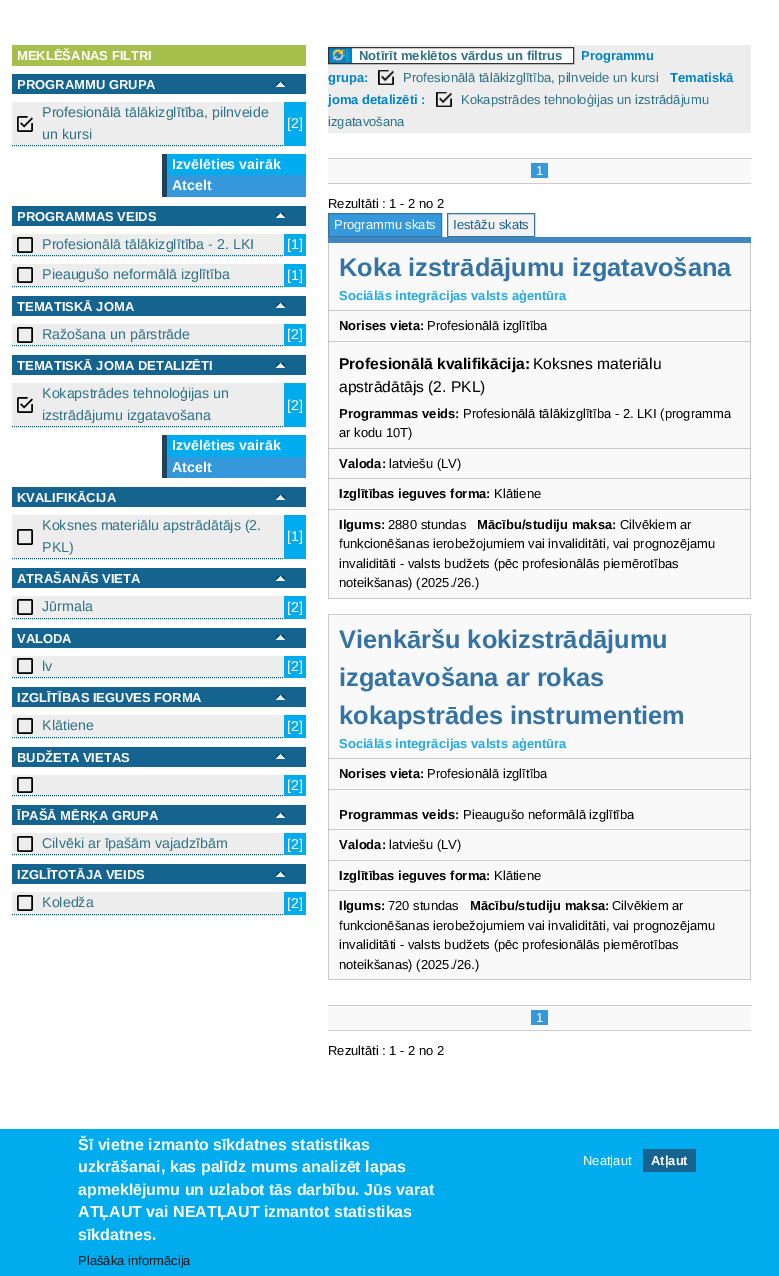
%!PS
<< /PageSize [779 1276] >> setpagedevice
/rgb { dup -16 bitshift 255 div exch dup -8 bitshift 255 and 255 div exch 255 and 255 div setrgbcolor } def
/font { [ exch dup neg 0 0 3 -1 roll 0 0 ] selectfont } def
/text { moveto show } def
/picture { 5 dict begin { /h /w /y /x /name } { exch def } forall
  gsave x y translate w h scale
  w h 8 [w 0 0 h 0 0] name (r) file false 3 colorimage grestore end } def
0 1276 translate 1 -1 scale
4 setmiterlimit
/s1 { /LiberationSans-Bold 13 font 16#FFFFFF rgb } def
/s2 { /LiberationSans-Regular 14.25 font 16#307386 rgb } def
/s3 { /LiberationSans-Regular 14.25 font 16#FFFFFF rgb } def
/s4 { /LiberationSans-Bold 14.25 font 16#FFFFFF rgb } def
/s5 { /LiberationSans-Bold 13 font 16#307386 rgb } def
/s6 { /LiberationSans-Bold 13 font 16#0083C7 rgb } def
/s7 { /LiberationSans-Regular 13 font 16#307386 rgb } def
/s8 { /LiberationSans-Regular 13 font 16#FFFFFF rgb } def
/s9 { /LiberationSans-Regular 13 font 16#000000 rgb } def
/s10 { /LiberationSans-Regular 13 font 16#1F628D rgb } def
/s11 { /LiberationSans-Bold 25.4 font 16#3473A2 rgb } def
/s12 { /LiberationSans-Bold 13 font 16#25AAE1 rgb } def
/s13 { /LiberationSans-Bold 13 font 16#000000 rgb } def
/s14 { /LiberationSans-Bold 15.6 font 16#000000 rgb } def
/s15 { /LiberationSans-Regular 15.6 font 16#000000 rgb } def
/s16 { /LiberationSans-Bold 16 font 16#FFFFFF rgb } def
/s17 { /LiberationSans-Regular 13 font 16#061B27 rgb } def
16#FFFFFF rgb
0 0 779 1276 rectfill
16#A7C04C rgb
12 45 294 21 rectfill
s1
(MEKLĒŠANAS FILTRI) 17 60 text
16#156490 rgb
12 74 294 20 rectfill
s1
(PROGRAMMU GRUPA) 17 89 text
(pic1.raw) 276 82 9 5 picture
16#EDEDED rgb
12 102 272 44 rectfill
(pic2.raw) 17 116 16 16 picture
16#01567A rgb
[1 1] 0 setdash
12 145.5 moveto 284 145.5 lineto stroke
s2
(Profesionālā tālākizglītība, pilnveide) 42 117 text
(un kursi) 42 139 text
16#00ACED rgb
284 102 22 44 rectfill
s3
([2]) 287 128 text
16#1F425D rgb
162 154 5 43 rectfill
16#00ACED rgb
167 154 139 21 rectfill
s4
(Izvēlēties vairāk) 172 169 text
16#3498DB rgb
167 175 139 22 rectfill
s4
(Atcelt) 172 190 text
16#156490 rgb
12 206 294 20 rectfill
s1
(PROGRAMMAS VEIDS) 17 221 text
(pic1.raw) 276 213 9 5 picture
16#EDEDED rgb
12 234 272 22 rectfill
(pic3.raw) 17 237 16 16 picture
16#01567A rgb
12 255.5 moveto 284 255.5 lineto stroke
s2
(Profesionālā tālākizglītība - 2. LKI) 42 249 text
16#00ACED rgb
284 234 22 22 rectfill
s3
([1]) 287 249 text
16#EDEDED rgb
12 264 272 23 rectfill
(pic3.raw) 17 267 16 16 picture
16#01567A rgb
12 286.5 moveto 284 286.5 lineto stroke
s2
(Pieaugušo neformālā izglītība) 42 279 text
16#00ACED rgb
284 264 22 23 rectfill
s3
([1]) 287 280 text
16#156490 rgb
12 296 294 20 rectfill
s1
(TEMATISKĀ JOMA) 17 311 text
(pic1.raw) 276 303 9 5 picture
16#EDEDED rgb
12 324 272 22 rectfill
(pic3.raw) 17 327 16 16 picture
16#01567A rgb
12 345.5 moveto 284 345.5 lineto stroke
s2
(Ražošana un pārstrāde) 42 339 text
16#00ACED rgb
284 324 22 22 rectfill
s3
([2]) 287 339 text
16#156490 rgb
12 355 294 20 rectfill
s1
(TEMATISKĀ JOMA DETALIZĒTI) 17 370 text
(pic1.raw) 276 363 9 5 picture
16#EDEDED rgb
12 383 272 44 rectfill
(pic2.raw) 17 397 16 16 picture
16#01567A rgb
12 426.5 moveto 284 426.5 lineto stroke
s2
(Kokapstrādes tehnoloģijas un) 42 398 text
(izstrādājumu izgatavošana) 42 420 text
16#00ACED rgb
284 383 22 44 rectfill
s3
([2]) 287 410 text
16#1F425D rgb
162 435 5 43 rectfill
16#00ACED rgb
167 435 139 22 rectfill
s4
(Izvēlēties vairāk) 172 450 text
16#3498DB rgb
167 457 139 21 rectfill
s4
(Atcelt) 172 472 text
16#156490 rgb
12 487 294 20 rectfill
s1
(KVALIFIKĀCIJA) 17 502 text
(pic1.raw) 276 495 9 5 picture
16#EDEDED rgb
12 515 272 44 rectfill
(pic3.raw) 17 529 16 16 picture
16#01567A rgb
12 558.5 moveto 284 558.5 lineto stroke
s2
(Koksnes materiālu apstrādātājs \(2.) 42 530 text
(PKL\)) 42 552 text
16#00ACED rgb
284 515 22 44 rectfill
s3
([1]) 287 541 text
16#156490 rgb
12 568 294 20 rectfill
s1
(ATRAŠANĀS VIETA) 17 583 text
(pic1.raw) 276 576 9 5 picture
16#EDEDED rgb
12 596 272 23 rectfill
(pic3.raw) 17 599 16 16 picture
16#01567A rgb
12 618.5 moveto 284 618.5 lineto stroke
s2
(Jūrmala) 42 611 text
16#00ACED rgb
284 596 22 23 rectfill
s3
([2]) 287 612 text
16#156490 rgb
12 628 294 20 rectfill
s1
(VALODA) 17 643 text
(pic1.raw) 276 635 9 5 picture
16#EDEDED rgb
12 656 272 22 rectfill
(pic3.raw) 17 658 16 16 picture
16#01567A rgb
12 677.5 moveto 284 677.5 lineto stroke
s2
(lv) 42 671 text
16#00ACED rgb
284 656 22 22 rectfill
s3
([2]) 287 671 text
16#156490 rgb
12 687 294 20 rectfill
s1
(IZGLĪTĪBAS IEGUVES FORMA) 17 702 text
(pic1.raw) 276 695 9 5 picture
16#EDEDED rgb
12 715 272 23 rectfill
(pic3.raw) 17 718 16 16 picture
16#01567A rgb
12 737.5 moveto 284 737.5 lineto stroke
s2
(Klātiene) 42 730 text
16#00ACED rgb
284 715 22 23 rectfill
s3
([2]) 287 731 text
16#156490 rgb
12 747 294 20 rectfill
s1
(BUDŽETA VIETAS) 17 762 text
(pic1.raw) 276 754 9 5 picture
16#EDEDED rgb
12 775 272 21 rectfill
(pic3.raw) 17 777 16 16 picture
16#01567A rgb
12 795.5 moveto 284 795.5 lineto stroke
16#00ACED rgb
284 775 22 21 rectfill
s3
([2]) 287 790 text
16#156490 rgb
12 805 294 20 rectfill
s1
(ĪPAŠĀ MĒRĶA GRUPA) 17 820 text
(pic1.raw) 276 813 9 5 picture
16#EDEDED rgb
12 833 272 22 rectfill
(pic3.raw) 17 836 16 16 picture
16#01567A rgb
12 854.5 moveto 284 854.5 lineto stroke
s2
(Cilvēki ar īpašām vajadzībām) 42 848 text
16#00ACED rgb
284 833 22 22 rectfill
s3
([2]) 287 849 text
16#156490 rgb
12 864 294 20 rectfill
s1
(IZGLĪTOTĀJA VEIDS) 17 879 text
(pic1.raw) 276 872 9 5 picture
16#EDEDED rgb
12 892 272 23 rectfill
(pic3.raw) 17 895 16 16 picture
16#01567A rgb
12 914.5 moveto 284 914.5 lineto stroke
s2
(Koledža) 42 907 text
16#00ACED rgb
284 892 22 23 rectfill
s3
([2]) 287 908 text
16#EDEDED rgb
328 45 423 88 rectfill
(pic4.raw) 329 48 23 15 picture
16#FFFFFF rgb
352 48 221 15 rectfill
16#333333 rgb
[] 0 setdash
328.5 47.5 245 16 rectstroke
s5
(Notīrīt meklētos vārdus un filtrus) 359 60 text
s6
(Programmu) 581 60 text
(grupa:) 328 82 text
(pic5.raw) 378 70 16 15 picture
s7
(Profesionālā tālākizglītība, pilnveide un kursi) 403 82 text
s6
(Tematiskā) 670 82 text
(joma detalizēti :) 328 104 text
(pic5.raw) 436 92 16 15 picture
s7
(Kokapstrādes tehnoloģijas un izstrādājumu) 461 104 text
(izgatavošana) 328 126 text
16#CCCCCC rgb
328 183 423 1 rectfill
328 158 424 1 rectfill
16#F9F9F9 rgb
328 159 423 24 rectfill
16#3498DB rgb
531 163 17 15 rectfill
s8
(1) 536 175 text
s9
(Rezultāti : 1 - 2 no 2) 328 208 text
16#3599DB rgb
328.5 213.5 moveto 441.5 213.5 lineto 441.5 236.5 lineto 328.5 236.5 lineto closepath gsave fill grestore
16#3473A2 rgb
stroke
s8
(Programmu skats) 334 229 text
16#F2F2F2 rgb
447.5 213.5 moveto 534.5 213.5 lineto 534.5 236.5 lineto 447.5 236.5 lineto closepath gsave fill grestore
16#3473A2 rgb
stroke
s10
(Iestāžu skats) 453 229 text
16#C9C9C9 rgb
328 310 423 1 rectfill
328 341 423 1 rectfill
328 448 423 1 rectfill
328 478 423 1 rectfill
328 509 423 1 rectfill
750 509 1 90 rectfill
750 478 1 32 rectfill
750 448 1 31 rectfill
750 341 1 108 rectfill
750 239 1 103 rectfill
328 598 423 1 rectfill
328 509 1 90 rectfill
328 478 1 32 rectfill
328 448 1 31 rectfill
328 341 1 108 rectfill
328 239 1 103 rectfill
16#3E88BF rgb
328 237 423 6 rectfill
16#F9F9F9 rgb
329 243 421 67 rectfill
s11
(Koka izstrādājumu izgatavošana) 339 276 text
s12
(Sociālās integrācijas valsts aģentūra) 339 300 text
16#F9F9F9 rgb
329 311 421 30 rectfill
s13
(Norises vieta:) 339 330 text
s9
(Profesionālā izglītība) 427 330 text
16#F9F9F9 rgb
329 342 421 106 rectfill
s14
(Profesionālā kvalifikācija:) 339 369 text
s15
(Koksnes materiālu) 533 369 text
(apstrādātājs \(2. PKL\)) 339 392 text
s13
(Programmas veids:) 339 418 text
s9
(Profesionālā tālākizglītība - 2. LKI \(programma) 463 418 text
(ar kodu 10T\)) 339 437 text
16#F9F9F9 rgb
329 449 421 29 rectfill
s13
(Valoda:) 339 468 text
s9
(latviešu \(LV\)) 389 468 text
16#F9F9F9 rgb
329 479 421 30 rectfill
s13
(Izglītības ieguves forma:) 339 498 text
s9
(Klātiene) 494 498 text
16#F9F9F9 rgb
329 510 421 88 rectfill
s13
(Ilgums:) 339 529 text
s9
(2880 stundas) 388 529 text
s13
(Mācību/studiju maksa:) 477 529 text
s9
(Cilvēkiem ar) 620 529 text
(funkcionēšanas ierobežojumiem vai invaliditāti, vai prognozējamu) 339 548 text
(invaliditāti - valsts budžets \(pēc profesionālās piemērotības) 339 568 text
(noteikšanas\) \(2025./26.\)) 339 587 text
16#F9F9F9 rgb
329 615 421 143 rectfill
16#C9C9C9 rgb
328 614 423 1 rectfill
328 758 423 1 rectfill
328 789 423 1 rectfill
328 829 423 1 rectfill
328 860 423 1 rectfill
328 890 423 1 rectfill
750 890 1 90 rectfill
750 860 1 31 rectfill
750 829 1 32 rectfill
750 789 1 41 rectfill
750 758 1 32 rectfill
750 614 1 145 rectfill
328 979 423 1 rectfill
328 890 1 90 rectfill
328 860 1 31 rectfill
328 829 1 32 rectfill
328 789 1 41 rectfill
328 758 1 32 rectfill
328 614 1 145 rectfill
s11
(Vienkāršu kokizstrādājumu) 339 648 text
(izgatavošana ar rokas) 339 686 text
(kokapstrādes instrumentiem) 339 724 text
s12
(Sociālās integrācijas valsts aģentūra) 339 748 text
16#F9F9F9 rgb
329 759 421 30 rectfill
s13
(Norises vieta:) 339 778 text
s9
(Profesionālā izglītība) 427 778 text
16#F9F9F9 rgb
329 790 421 39 rectfill
s13
(Programmas veids:) 339 819 text
s9
(Pieaugušo neformālā izglītība) 463 819 text
16#F9F9F9 rgb
329 830 421 30 rectfill
s13
(Valoda:) 339 849 text
s9
(latviešu \(LV\)) 389 849 text
16#F9F9F9 rgb
329 861 421 29 rectfill
s13
(Izglītības ieguves forma:) 339 880 text
s9
(Klātiene) 494 880 text
16#F9F9F9 rgb
329 891 421 88 rectfill
s13
(Ilgums:) 339 910 text
s9
(720 stundas) 388 910 text
s13
(Mācību/studiju maksa:) 470 910 text
s9
(Cilvēkiem ar) 612 910 text
(funkcionēšanas ierobežojumiem vai invaliditāti, vai prognozējamu) 339 930 text
(invaliditāti - valsts budžets \(pēc profesionālās piemērotības) 339 949 text
(noteikšanas\) \(2025./26.\)) 339 969 text
16#CCCCCC rgb
328 1030 423 1 rectfill
328 1005 424 1 rectfill
16#F9F9F9 rgb
328 1006 423 24 rectfill
16#3498DB rgb
531 1010 17 15 rectfill
s8
(1) 536 1022 text
s9
(Rezultāti : 1 - 2 no 2) 328 1055 text
16#00ACED rgb
0 1129 779 147 rectfill
s16
(Šī vietne izmanto sīkdatnes statistikas) 78 1150 text
(uzkrāšanai, kas palīdz mums analizēt lapas) 78 1172 text
(apmeklējumu un uzlabot tās darbību. Jūs varat) 78 1195 text
(ATĻAUT vai NEATĻAUT izmantot statistikas) 78 1217 text
(sīkdatnes.) 78 1240 text
s17
(Plašāka informācija) 78 1265 text
s8
(Neatļaut) 583 1165 text
16#156490 rgb
643 1149 53 23 rectfill
s1
(Atļaut) 651 1165 text
showpage
